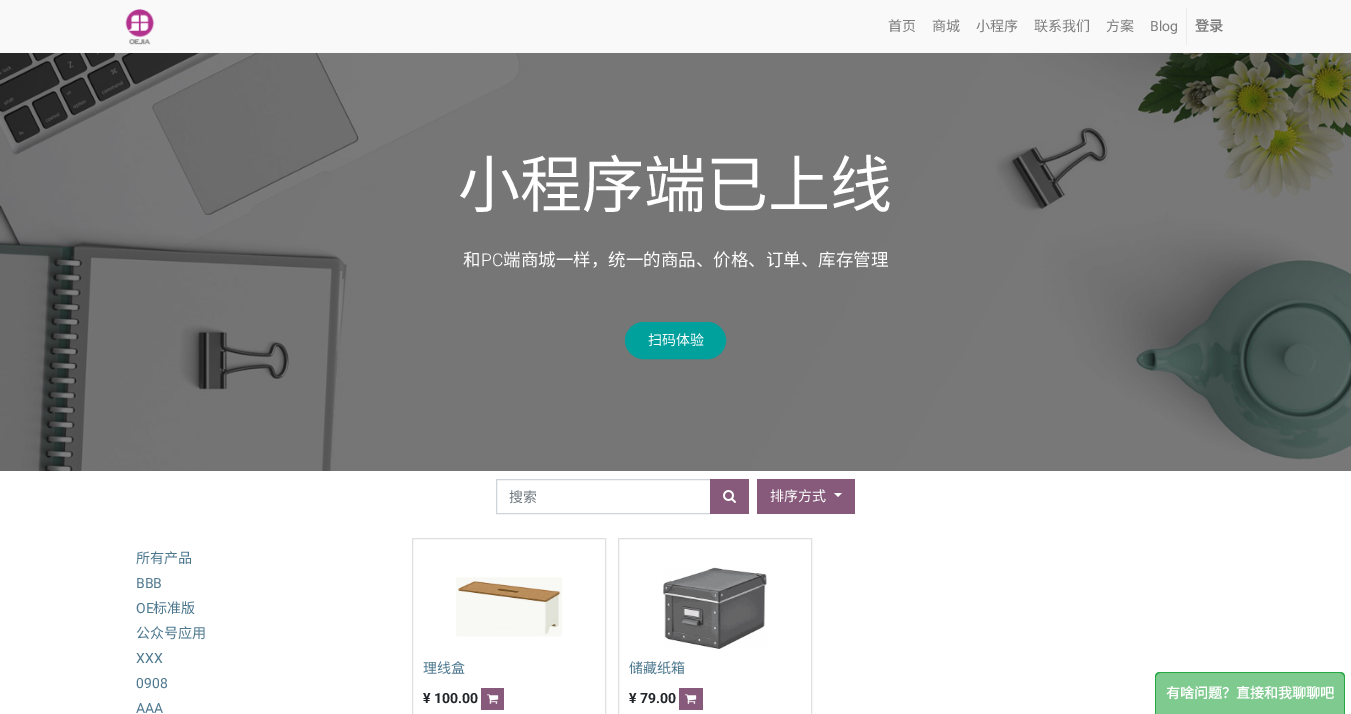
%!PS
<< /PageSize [1351 714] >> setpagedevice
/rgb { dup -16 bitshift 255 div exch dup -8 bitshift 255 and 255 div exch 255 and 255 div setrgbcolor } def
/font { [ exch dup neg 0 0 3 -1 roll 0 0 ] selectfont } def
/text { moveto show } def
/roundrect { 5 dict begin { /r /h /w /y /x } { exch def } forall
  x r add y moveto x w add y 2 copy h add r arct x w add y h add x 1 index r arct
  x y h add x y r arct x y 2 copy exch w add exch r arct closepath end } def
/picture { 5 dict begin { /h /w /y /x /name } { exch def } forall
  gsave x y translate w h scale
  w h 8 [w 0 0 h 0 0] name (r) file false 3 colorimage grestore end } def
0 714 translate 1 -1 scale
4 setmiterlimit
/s1 { /NotoSansCJKSC-Regular 14 font 16#7D7D7D rgb } def
/s2 { /Roboto-Regular 14 font 16#7D7D7D rgb } def
/s3 { /NotoSansCJKSC-Bold 14 font 16#7D7D7D rgb } def
/s4 { /NotoSansCJKSC-Regular 62 font 16#FFFFFF rgb } def
/s5 { /NotoSansCJKSC-Regular 17.5 font 16#FFFFFF rgb } def
/s6 { /Roboto-Light 17.5 font 16#FFFFFF rgb } def
/s7 { /NotoSansCJKSC-Regular 14 font 16#FFFFFF rgb } def
/s8 { /NotoSansCJKSC-Regular 14 font 16#6C757D rgb } def
/s9 { /NotoSansCJKSC-Regular 14 font 16#4D778F rgb } def
/s10 { /Roboto-Regular 14 font 16#4D778F rgb } def
/s11 { /Roboto-Bold 14 font 16#212529 rgb } def
/s12 { /NotoSansCJKSC-Bold 14 font 16#FFFFFF rgb } def
16#FFFFFF rgb
0 0 1351 714 rectfill
16#F9F9F9 rgb
0 0 1351 53 rectfill
(pic1.raw) 125 9 30 36 picture
s1
(首页) 888 31 text
(商城) 932 31 text
(小程序) 976 31 text
(联系我们) 1034 31 text
(方案) 1106 31 text
s2
(Blog) 1150 31 text
16#E9ECEF rgb
1186 8 1 37 rectfill
s3
(登录) 1195 31 text
(pic2.raw) 0 53 1351 418 picture
s4
(小程序端已上线) 458 207 text
s5
(和) 463 266 text
s6
(PC) 481 266 text
s5
(端商城一样，统一的商品、价格、订单、库存管理) 503 266 text
16#00A09D rgb
625.5 322.5 100 36 18 roundrect gsave fill grestore
stroke
s7
(扫码体验) 648 345 text
16#CED4DA rgb
496.5 479.5 214 34 rectstroke
s8
(搜索) 509 502 text
16#875A7B rgb
710 479 39 35 rectfill
(pic3.raw) 723 490 13 13 picture
757 479 98 35 rectfill
s7
(排序方式) 770 501 text
834 493 moveto 842 493 lineto 838 497 lineto closepath fill
s9
(所有产品) 136 563 text
s10
(BBB) 136 588 text
(OE) 136 613 text
s9
(标准版) 153 613 text
(公众号应用) 136 638 text
s10
(XXX) 136 663 text
(0908) 136 688 text
(AAA) 136 713 text
16#E0E0E0 rgb
412.5 538.5 193 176 rectstroke
(pic4.raw) 456 577 106 60 picture
s9
(理线盒) 423 673 text
s11
(¥ 100.00) 423 703 text
16#875A7B rgb
481 688 23 22 rectfill
(pic5.raw) 487 694 12 10 picture
16#E0E0E0 rgb
618.5 538.5 193 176 rectstroke
(pic6.raw) 663 567 104 82 picture
s9
(储藏纸箱) 629 673 text
s11
(¥ 79.00) 629 703 text
16#875A7B rgb
679 688 24 22 rectfill
(pic5.raw) 685 694 12 10 picture
16#7ECA8F rgb
1160 672 moveto 1340 672 lineto 1343 672 1345 674 1345 677 curveto 1345 714 lineto 1155 714 lineto 1155 677 lineto 1155 674 1157 672 1160 672 curveto closepath fill
16#28A745 rgb
1160 672 moveto 1340 672 lineto 1343 672 1345 674 1345 677 curveto 1345 714 lineto 1155 714 lineto 1155 677 lineto 1155 674 1157 672 1160 672 curveto closepath 1160 673 moveto 1340 673 lineto 1342 673 1344 675 1344 677 curveto 1344 714 lineto 1156 714 lineto 1156 677 lineto 1156 675 1158 673 1160 673 curveto closepath eofill
s12
(有啥问题？直接和我聊聊吧) 1166 698 text
showpage
